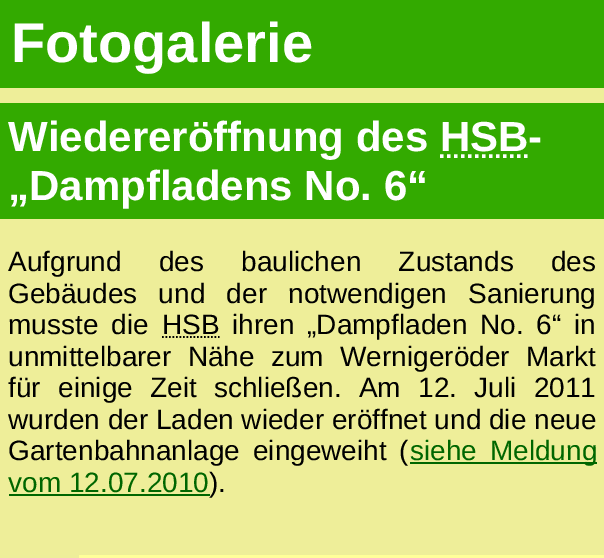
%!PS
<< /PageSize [604 558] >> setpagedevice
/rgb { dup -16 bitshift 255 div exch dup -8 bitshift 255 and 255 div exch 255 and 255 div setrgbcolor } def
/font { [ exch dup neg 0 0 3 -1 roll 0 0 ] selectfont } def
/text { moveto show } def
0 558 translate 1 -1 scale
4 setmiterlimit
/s1 { /LiberationSans-Bold 56 font 16#FFFFFF rgb } def
/s2 { /LiberationSans-Bold 42 font 16#FFFFFF rgb } def
/s3 { /LiberationSans-Regular 28 font 16#000000 rgb } def
/s4 { /LiberationSans-Regular 28 font 16#006600 rgb } def
16#EEEE99 rgb
0 0 604 558 rectfill
16#33AA00 rgb
0 0 604 88 rectfill
s1
(Fotogalerie) 11 62 text
16#33AA00 rgb
0 103 604 116 rectfill
s2
(Wiedereröffnung des HSB-) 8 151 text
3.5 setlinewidth
[3.5 3.5] 0 setdash
440 156 moveto 529 156 lineto stroke
(„Dampfladens No. 6“) 8 200 text
/LiberationSans-Regular 28 font
16#000000 rgb
8 271 moveto 29.5 0 32 (Aufgrund des baulichen Zustands des) widthshow
8 303 moveto 13.5 0 32 (Gebäudes und der notwendigen Sanierung) widthshow
8 334 moveto 5 0 32 (musste die) widthshow
(HSB) 162 334 text
1.8 setlinewidth
[1.75 1.75] 0 setdash
162 337 moveto 219.5 337 lineto stroke
232 334 moveto 5 0 32 (ihren „Dampfladen No. 6“ in) widthshow
8 366 moveto 8.5 0 32 (unmittelbarer Nähe zum Wernigeröder Markt) widthshow
8 397 moveto 9.5 0 32 (für einige Zeit schließen. Am 12. Juli 2011) widthshow
(wurden der Laden wieder eröffnet und die neue) 8 429 text
8 460 moveto 5 0 32 (Gartenbahnanlage eingeweiht \() widthshow
16#006600 rgb
410 462 187 2 rectfill
410 460 moveto 5 0 32 (siehe Meldung) widthshow
(vom 12.07.2010) 8 492 text
9 494 201 2 rectfill
s3
(\).) 209 492 text
16#FFFF99 rgb
79 555 525 3 rectfill
showpage
